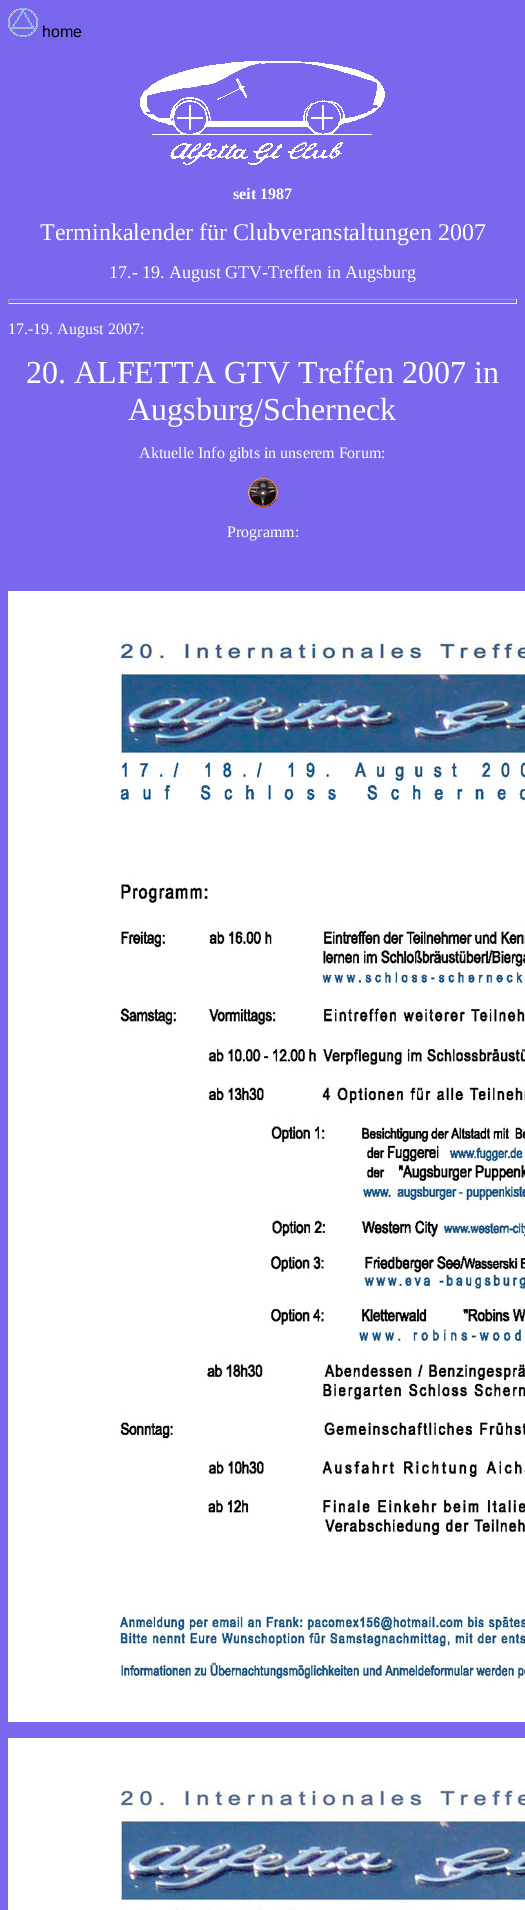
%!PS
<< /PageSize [525 1910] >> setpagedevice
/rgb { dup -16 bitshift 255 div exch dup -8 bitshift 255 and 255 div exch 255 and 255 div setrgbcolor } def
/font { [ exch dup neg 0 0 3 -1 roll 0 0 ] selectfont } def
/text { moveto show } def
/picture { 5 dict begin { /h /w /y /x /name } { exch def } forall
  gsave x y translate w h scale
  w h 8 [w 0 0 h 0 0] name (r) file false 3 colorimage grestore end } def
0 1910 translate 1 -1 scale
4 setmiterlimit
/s1 { /LiberationSans-Regular 16 font 16#000000 rgb } def
/s2 { /LiberationSerif-Bold 16 font 16#FFFFFF rgb } def
/s3 { /LiberationSerif-Regular 24 font 16#FFFFFF rgb } def
/s4 { /LiberationSerif-Regular 18 font 16#FFFFFF rgb } def
/s5 { /LiberationSerif-Regular 16 font 16#FFFFFF rgb } def
/s6 { /LiberationSerif-Regular 32 font 16#FFFFFF rgb } def
16#7968EE rgb
0 0 525 1910 rectfill
(pic1.raw) 8 8 30 29 picture
s1
(home) 42 37 text
(pic2.raw) 140 61 245 104 picture
s2
(seit 1987) 233 199 text
s3
(Terminkalender für Clubveranstaltungen 2007) 40 240 text
s4
(17.- 19. August GTV-Treffen in Augsburg) 109 278 text
16#9F9F9F rgb
8 299 509 1 rectfill
16#EEEEEE rgb
516 299 1 5 rectfill
8 303 509 1 rectfill
16#9F9F9F rgb
8 299 1 5 rectfill
s5
(17.-19. August 2007:) 8 334 text
s6
(20. ALFETTA GTV Treffen 2007 in) 26 383 text
(Augsburg/Scherneck) 128 420 text
s5
(Aktuelle Info gibts in unserem Forum:) 139 458 text
(pic3.raw) 248 478 30 29 picture
(Programm:) 227 537 text
(pic4.raw) 8 591 517 1131 picture
(pic5.raw) 8 1738 517 172 picture
showpage
